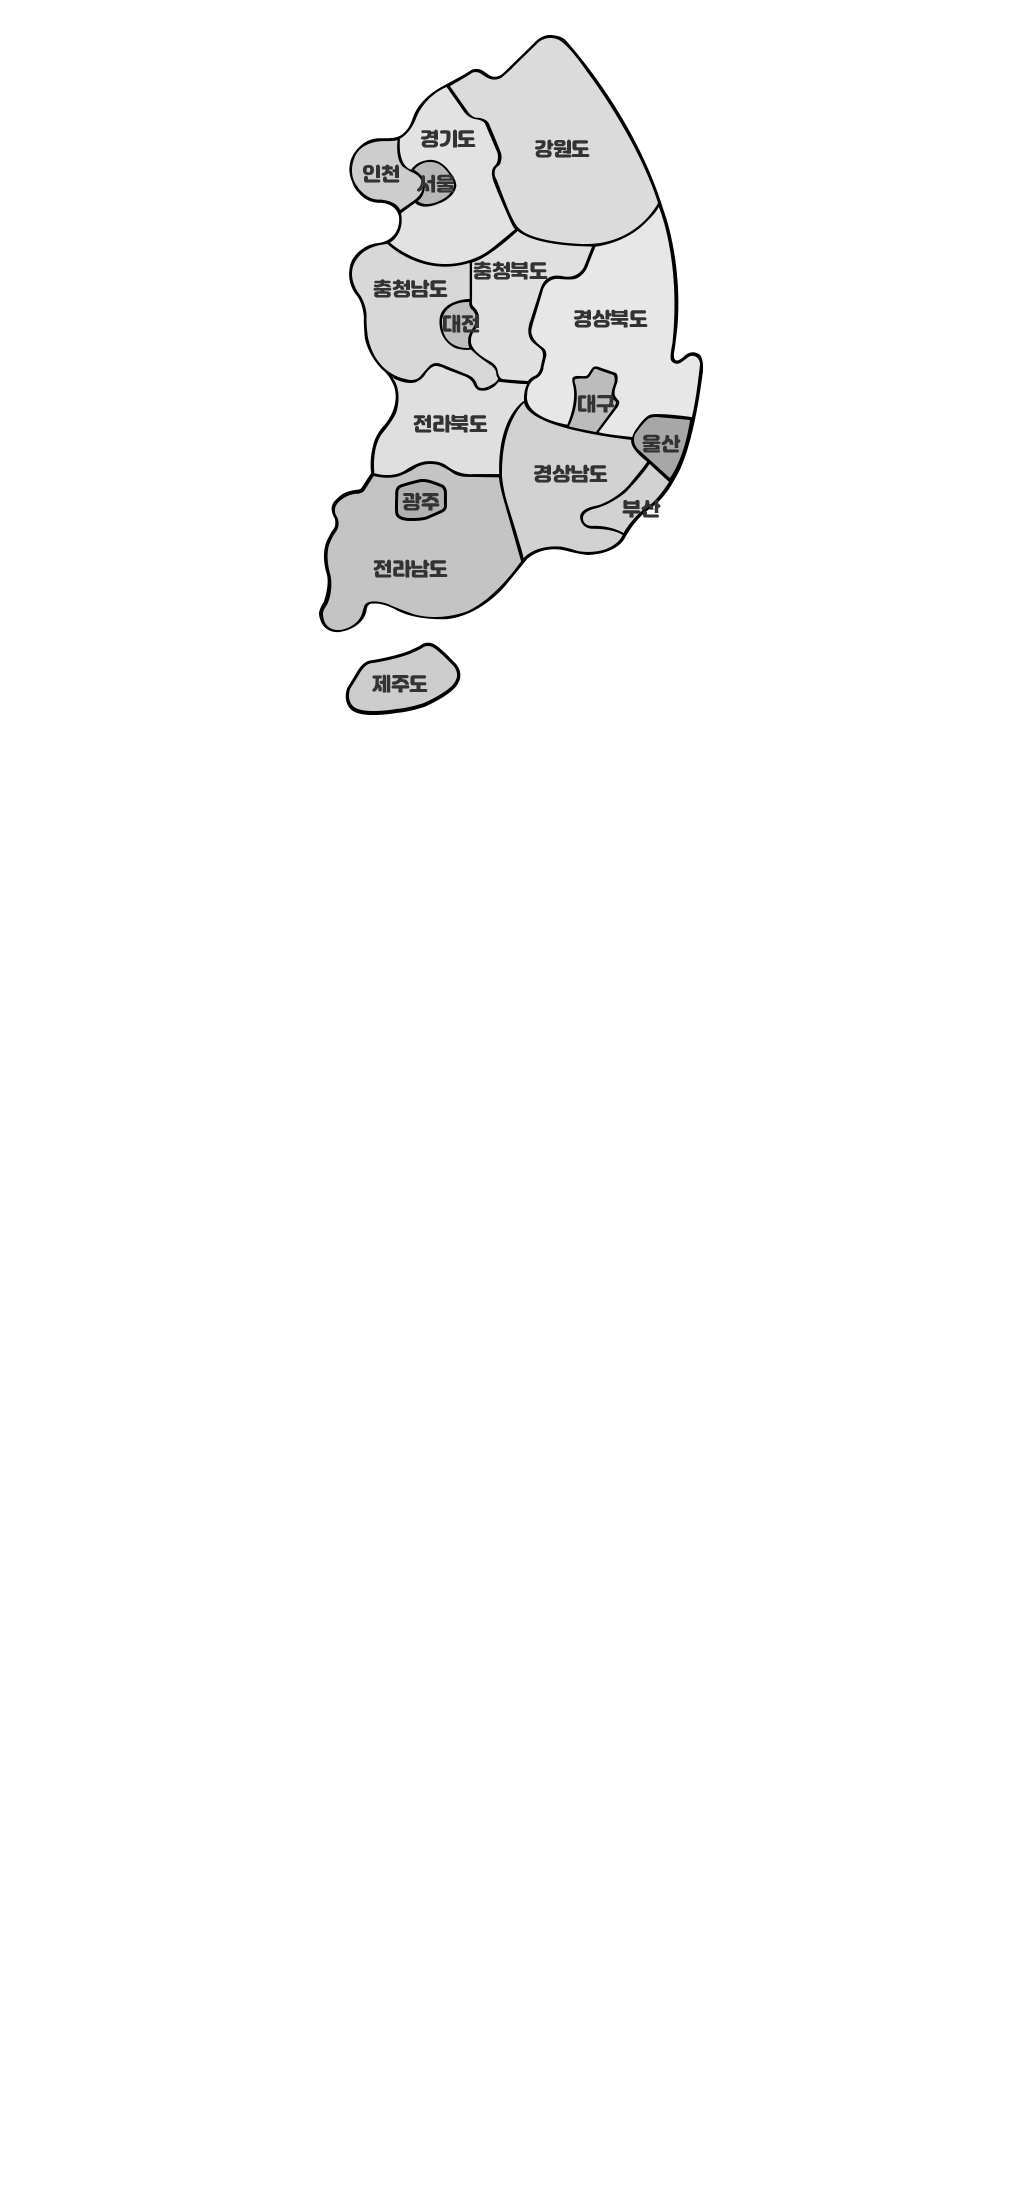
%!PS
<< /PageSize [1021 2210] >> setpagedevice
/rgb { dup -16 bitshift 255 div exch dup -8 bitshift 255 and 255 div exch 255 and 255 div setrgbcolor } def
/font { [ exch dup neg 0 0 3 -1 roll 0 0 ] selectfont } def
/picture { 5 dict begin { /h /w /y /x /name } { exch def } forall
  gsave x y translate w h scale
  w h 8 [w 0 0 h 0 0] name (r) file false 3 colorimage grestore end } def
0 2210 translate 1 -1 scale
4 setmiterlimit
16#FFFFFF rgb
0 0 1021 2210 rectfill
(pic1.raw) 319 35 384 680 picture
/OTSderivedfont-Bold 19 font
16#333333 rgb
420 146 moveto -0.5 0 (경기도) ashow
534 156 moveto -0.5 0 (강원도) ashow
362 181 moveto -0.5 0 (인천) ashow
417 191 moveto -0.5 0 (서울) ashow
473 278 moveto -0.5 0 (충청북도) ashow
373 296 moveto -0.5 0 (충청남도) ashow
442 331 moveto -0.5 0 (대전) ashow
573 326 moveto -0.5 0 (경상북도) ashow
577 411 moveto -0.5 0 (대구) ashow
413 431 moveto -0.5 0 (전라북도) ashow
642 451 moveto -0.5 0 (울산) ashow
533 481 moveto -0.5 0 (경상남도) ashow
402 509 moveto -0.5 0 (광주) ashow
622 516 moveto -0.5 0 (부산) ashow
373 576 moveto -0.5 0 (전라남도) ashow
372 691 moveto -0.5 0 (제주도) ashow
showpage
